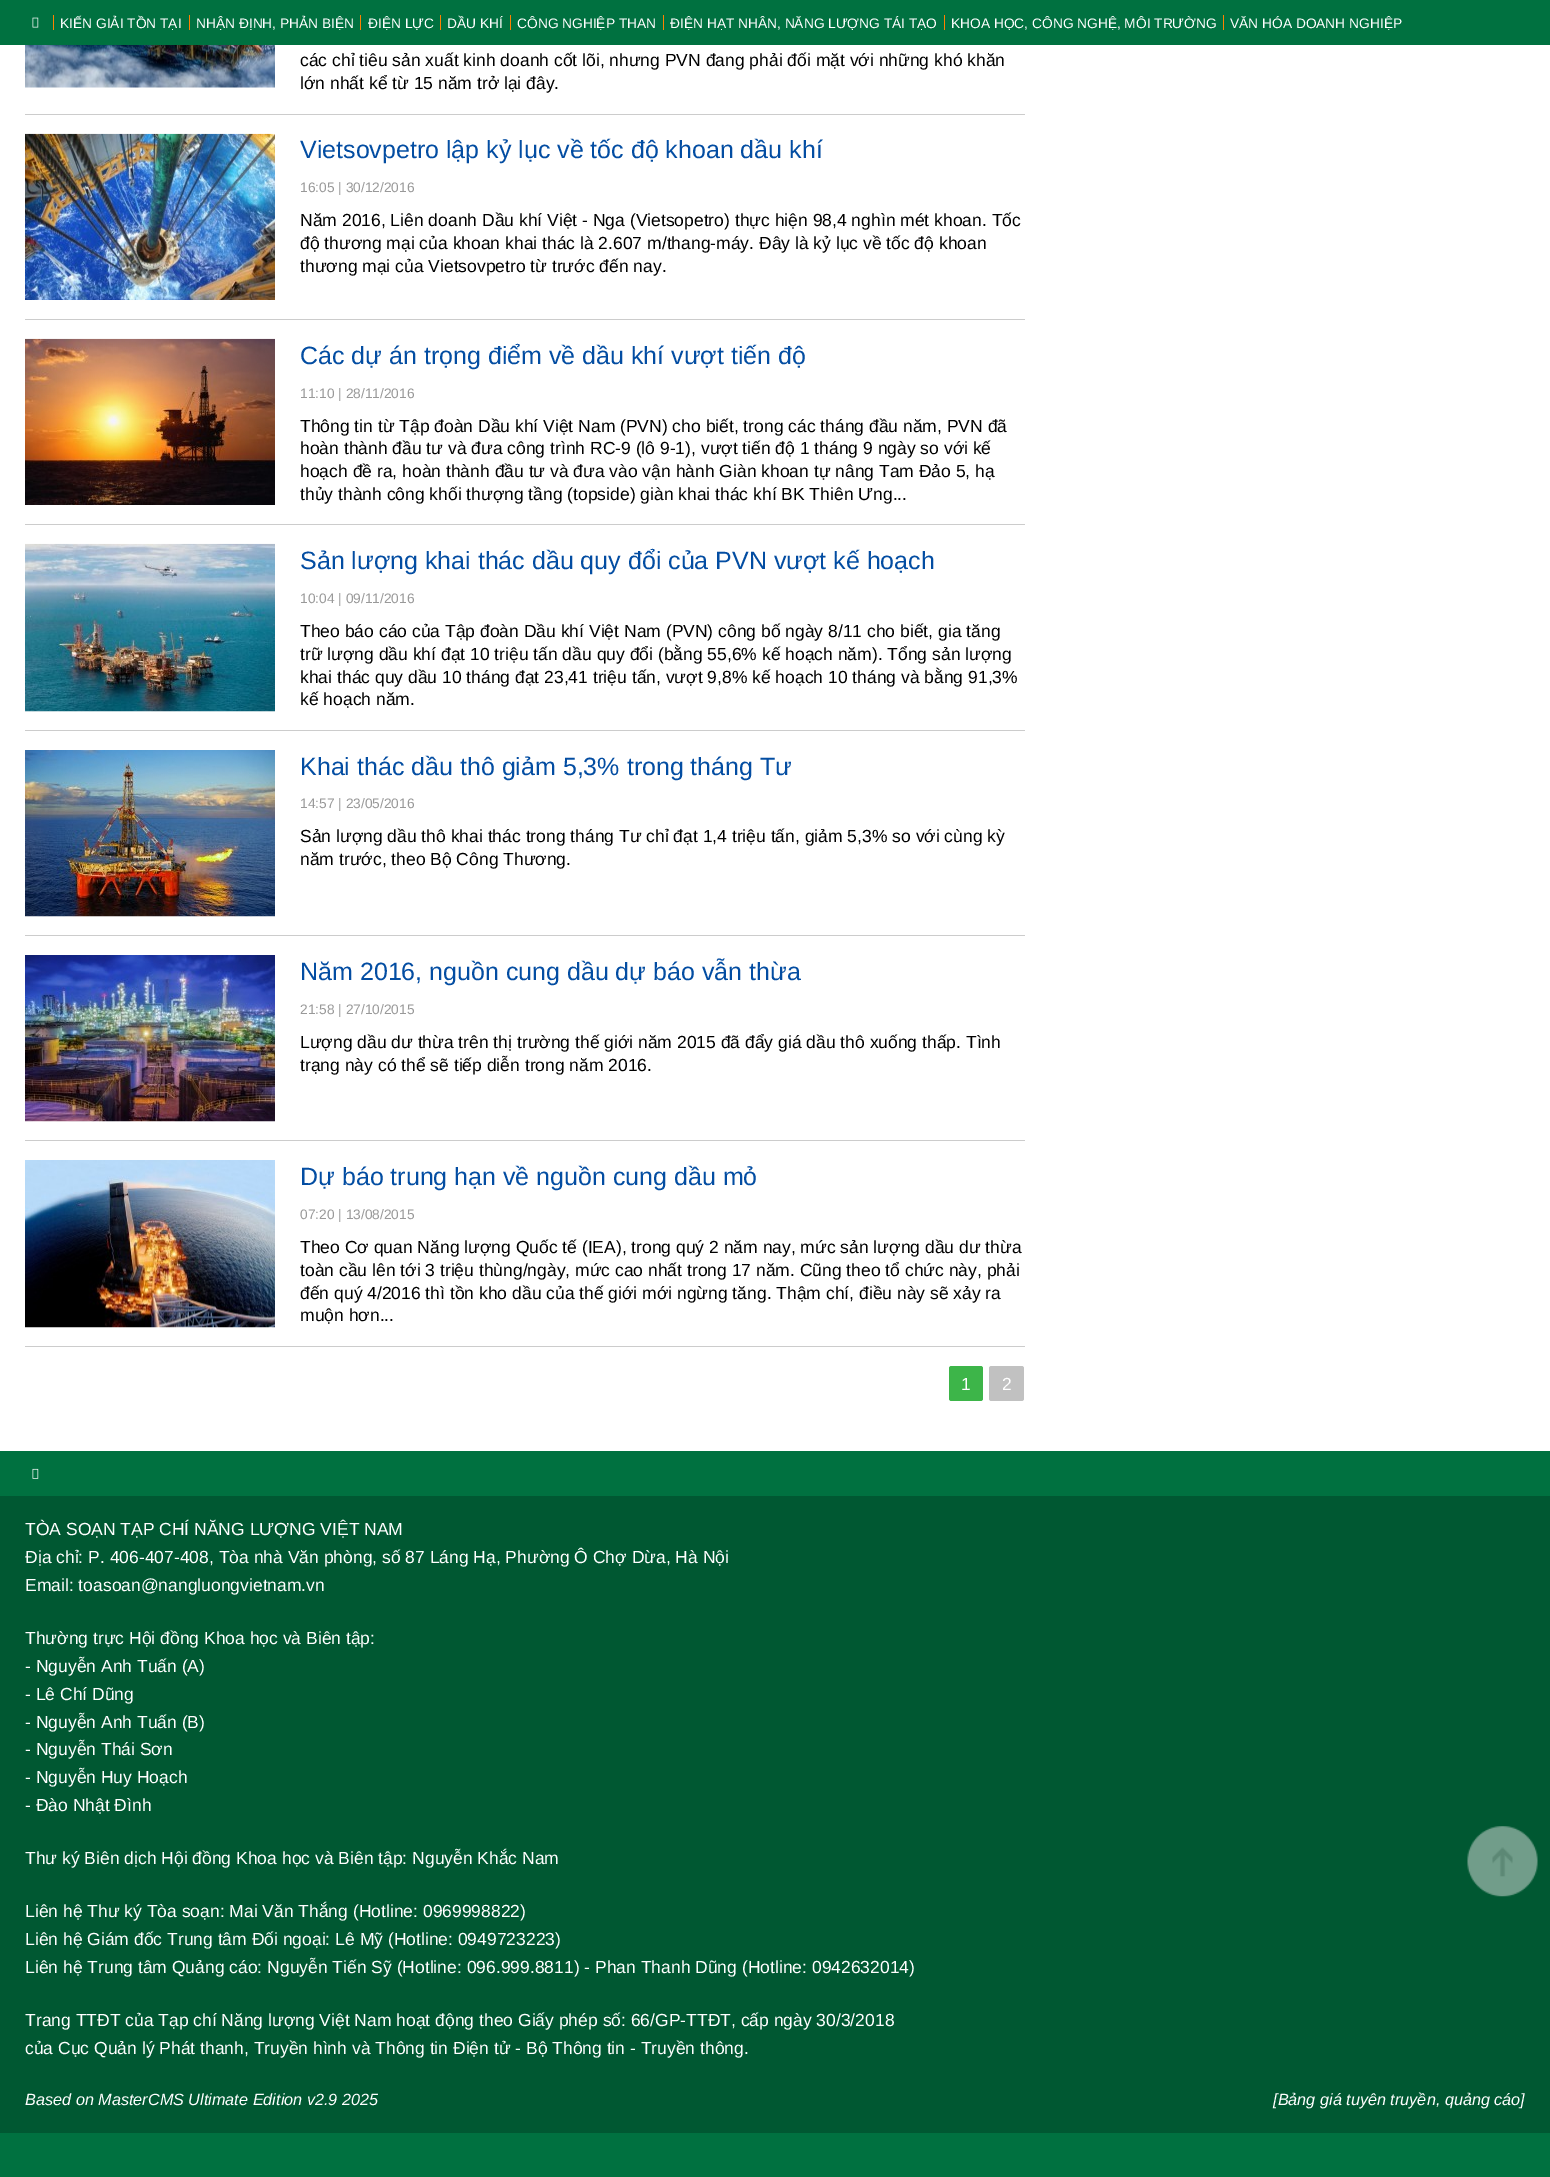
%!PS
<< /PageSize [1550 2177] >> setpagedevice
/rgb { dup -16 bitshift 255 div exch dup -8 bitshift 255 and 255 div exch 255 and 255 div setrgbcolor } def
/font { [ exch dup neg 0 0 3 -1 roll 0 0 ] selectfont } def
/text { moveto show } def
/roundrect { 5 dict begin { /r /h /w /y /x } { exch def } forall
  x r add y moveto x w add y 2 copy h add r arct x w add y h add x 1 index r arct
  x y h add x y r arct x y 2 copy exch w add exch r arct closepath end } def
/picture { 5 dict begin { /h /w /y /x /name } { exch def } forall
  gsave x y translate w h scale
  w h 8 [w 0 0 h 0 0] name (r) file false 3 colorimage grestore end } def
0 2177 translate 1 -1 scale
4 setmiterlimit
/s1 { /LiberationSans-Regular 13.75 font 16#FFFFFF rgb } def
/s2 { /LiberationSans-Regular 17.5 font 16#000000 rgb } def
/s3 { /LiberationSans-Regular 25 font 16#034DA2 rgb } def
/s4 { /LiberationSans-Regular 13.75 font 16#999999 rgb } def
/s5 { /LiberationSans-Regular 17.5 font 16#FFFFFF rgb } def
/s6 { /LiberationSans-Italic 16.25 font 16#FFFFFF rgb } def
16#FFFFFF rgb
0 0 1550 2177 rectfill
16#007140 rgb
0 0 1550 45 rectfill
(pic1.raw) 32 17 7 11 picture
s1
(KIẾN GIẢI TỒN TẠI) 60 28 text
16#FF8000 rgb
53 15 1 15 rectfill
s1
(NHẬN ĐỊNH, PHẢN BIỆN) 196 28 text
16#FF8000 rgb
189 15 1 15 rectfill
s1
(ĐIỆN LỰC) 368 28 text
16#FF8000 rgb
360 15 1 15 rectfill
s1
(DẦU KHÍ) 447 28 text
16#FF8000 rgb
440 15 1 15 rectfill
s1
(CÔNG NGHIỆP THAN) 517 28 text
16#FF8000 rgb
510 15 1 15 rectfill
s1
(ĐIỆN HẠT NHÂN, NĂNG LƯỢNG TÁI TẠO) 670 28 text
16#FF8000 rgb
663 15 1 15 rectfill
s1
(KHOA HỌC, CÔNG NGHỆ, MÔI TRƯỜNG) 951 28 text
16#FF8000 rgb
944 15 1 15 rectfill
s1
(VĂN HÓA DOANH NGHIỆP) 1230 28 text
16#FF8000 rgb
1223 15 1 15 rectfill
(pic2.raw) 25 45 250 43 picture
s2
(các chỉ tiêu sản xuất kinh doanh cốt lõi, nhưng PVN đang phải đối mặt với những khó khăn) 300 66 text
(lớn nhất kể từ 15 năm trở lại đây.) 300 89 text
16#CCCCCC rgb
25 114 1000 1 rectfill
(pic3.raw) 25 133 250 167 picture
s3
(Vietsovpetro lập kỷ lục về tốc độ khoan dầu khí) 300 158 text
s4
(16:05 | 30/12/2016) 300 192 text
s2
(Năm 2016, Liên doanh Dầu khí Việt - Nga \(Vietsopetro\) thực hiện 98,4 nghìn mét khoan. Tốc) 300 226 text
(độ thương mại của khoan khai thác là 2.607 m/thang-máy. Đây là kỷ lục về tốc độ khoan) 300 249 text
(thương mại của Vietsovpetro từ trước đến nay.) 300 272 text
16#CCCCCC rgb
25 319 1000 1 rectfill
(pic4.raw) 25 338 250 167 picture
s3
(Các dự án trọng điểm về dầu khí vượt tiến độ) 300 364 text
s4
(11:10 | 28/11/2016) 300 398 text
s2
(Thông tin từ Tập đoàn Dầu khí Việt Nam \(PVN\) cho biết, trong các tháng đầu năm, PVN đã) 300 432 text
(hoàn thành đầu tư và đưa công trình RC-9 \(lô 9-1\), vượt tiến độ 1 tháng 9 ngày so với kế) 300 454 text
(hoạch đề ra, hoàn thành đầu tư và đưa vào vận hành Giàn khoan tự nâng Tam Đảo 5, hạ) 300 477 text
(thủy thành công khối thượng tầng \(topside\) giàn khai thác khí BK Thiên Ưng...) 300 500 text
16#CCCCCC rgb
25 524 1000 1 rectfill
(pic5.raw) 25 543 250 169 picture
s3
(Sản lượng khai thác dầu quy đổi của PVN vượt kế hoạch) 300 569 text
s4
(10:04 | 09/11/2016) 300 603 text
s2
(Theo báo cáo của Tập đoàn Dầu khí Việt Nam \(PVN\) công bố ngày 8/11 cho biết, gia tăng) 300 637 text
(trữ lượng dầu khí đạt 10 triệu tấn dầu quy đổi \(bằng 55,6% kế hoạch năm\). Tổng sản lượng) 300 660 text
(khai thác quy dầu 10 tháng đạt 23,41 triệu tấn, vượt 9,8% kế hoạch 10 tháng và bằng 91,3%) 300 683 text
(kế hoạch năm.) 300 705 text
16#CCCCCC rgb
25 730 1000 1 rectfill
(pic6.raw) 25 750 250 167 picture
s3
(Khai thác dầu thô giảm 5,3% trong tháng Tư) 300 775 text
s4
(14:57 | 23/05/2016) 300 808 text
s2
(Sản lượng dầu thô khai thác trong tháng Tư chỉ đạt 1,4 triệu tấn, giảm 5,3% so với cùng kỳ) 300 842 text
(năm trước, theo Bộ Công Thương.) 300 865 text
16#CCCCCC rgb
25 935 1000 1 rectfill
(pic7.raw) 25 955 250 167 picture
s3
(Năm 2016, nguồn cung dầu dự báo vẫn thừa) 300 980 text
s4
(21:58 | 27/10/2015) 300 1014 text
s2
(Lượng dầu dư thừa trên thị trường thế giới năm 2015 đã đẩy giá dầu thô xuống thấp. Tình) 300 1048 text
(trạng này có thể sẽ tiếp diễn trong năm 2016.) 300 1071 text
16#CCCCCC rgb
25 1140 1000 1 rectfill
(pic8.raw) 25 1160 250 168 picture
s3
(Dự báo trung hạn về nguồn cung dầu mỏ) 300 1185 text
s4
(07:20 | 13/08/2015) 300 1219 text
s2
(Theo Cơ quan Năng lượng Quốc tế \(IEA\), trong quý 2 năm nay, mức sản lượng dầu dư thừa) 300 1253 text
(toàn cầu lên tới 3 triệu thùng/ngày, mức cao nhất trong 17 năm. Cũng theo tổ chức này, phải) 300 1276 text
(đến quý 4/2016 thì tồn kho dầu của thế giới mới ngừng tăng. Thậm chí, điều này sẽ xảy ra) 300 1299 text
(muộn hơn...) 300 1321 text
16#CCCCCC rgb
25 1346 1000 1 rectfill
16#3DB549 rgb
949 1366 34 35 2.5 roundrect fill
s5
(1) 961 1390 text
16#C1C1C1 rgb
989 1366 35 35 2.5 roundrect fill
s5
(2) 1002 1390 text
16#007140 rgb
0 2133 1550 44 rectfill
0 1451 1550 45 rectfill
(pic9.raw) 32 1468 7 11 picture
16#005832 rgb
0 1496 1550 637 rectfill
s5
(TÒA SOẠN TẠP CHÍ NĂNG LƯỢNG VIỆT NAM) 25 1535 text
(Địa chỉ: P. 406-407-408, Tòa nhà Văn phòng, số 87 Láng Hạ, Phường Ô Chợ Dừa, Hà Nội) 25 1563 text
(Email: toasoan@nangluongvietnam.vn) 25 1591 text
(Thường trực Hội đồng Khoa học và Biên tập:) 25 1644 text
(- Nguyễn Anh Tuấn \(A\)) 25 1672 text
(- Lê Chí Dũng) 25 1700 text
(- Nguyễn Anh Tuấn \(B\)) 25 1728 text
(- Nguyễn Thái Sơn) 25 1755 text
(- Nguyễn Huy Hoạch) 25 1783 text
(- Đào Nhật Đình) 25 1811 text
(Thư ký Biên dịch Hội đồng Khoa học và Biên tập: Nguyễn Khắc Nam) 25 1864 text
(Liên hệ Thư ký Tòa soạn: Mai Văn Thắng \(Hotline: 0969998822\)) 25 1917 text
(Liên hệ Giám đốc Trung tâm Đối ngoại: Lê Mỹ \(Hotline: 0949723223\)) 25 1945 text
(Liên hệ Trung tâm Quảng cáo: Nguyễn Tiến Sỹ \(Hotline: 096.999.8811\) - Phan Thanh Dũng \(Hotline: 0942632014\)) 25 1973 text
(Trang TTĐT của Tạp chí Năng lượng Việt Nam hoạt động theo Giấy phép số: 66/GP-TTĐT, cấp ngày 30/3/2018) 25 2026 text
(của Cục Quản lý Phát thanh, Truyền hình và Thông tin Điện tử - Bộ Thông tin - Truyền thông.) 25 2054 text
s6
(Based on MasterCMS Ultimate Edition v2.9 2025) 25 2105 text
([Bảng giá tuyên truyền, quảng cáo]) 1273 2105 text
(pic10.raw) 1467 1826 71 71 picture
showpage
